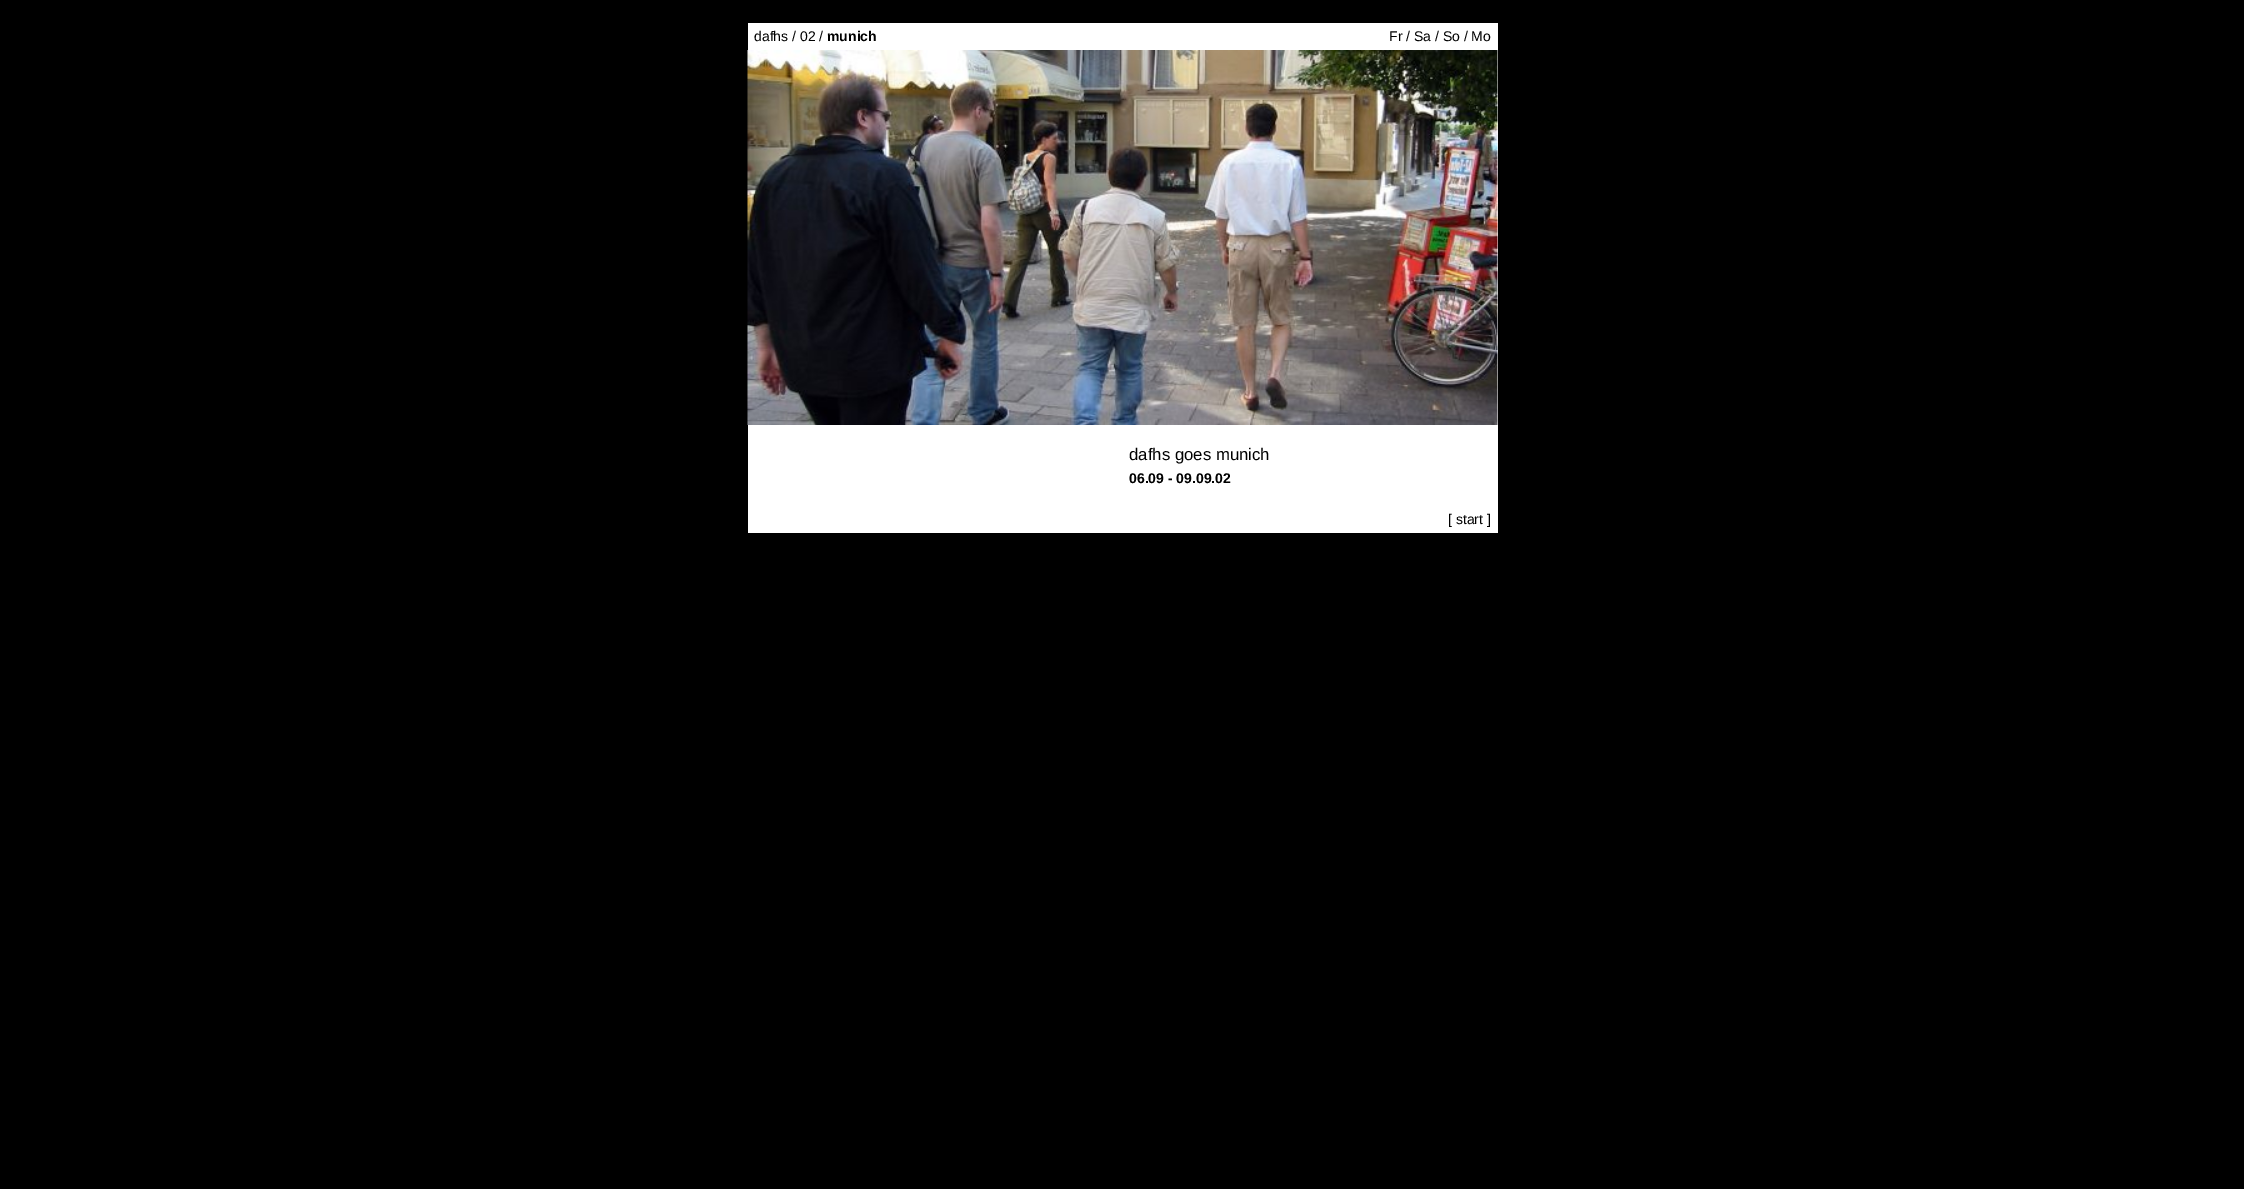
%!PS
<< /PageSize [2244 1189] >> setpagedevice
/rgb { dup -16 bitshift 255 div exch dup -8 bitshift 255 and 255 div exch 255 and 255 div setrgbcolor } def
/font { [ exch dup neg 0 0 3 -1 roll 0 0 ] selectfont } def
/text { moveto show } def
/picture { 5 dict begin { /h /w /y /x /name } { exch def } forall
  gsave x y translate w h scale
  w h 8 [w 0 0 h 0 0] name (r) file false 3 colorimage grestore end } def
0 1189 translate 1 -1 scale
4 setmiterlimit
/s1 { /LiberationSans-Regular 14 font 16#000000 rgb } def
/s2 { /LiberationSans-Bold 14 font 16#000000 rgb } def
/s3 { /LiberationSans-Regular 16.75 font 16#000000 rgb } def
16#000000 rgb
0 0 2244 1189 rectfill
16#FFFFFF rgb
748 23 750 27 rectfill
s1
(dafhs / 02 /) 754 41 text
s2
(munich) 827 41 text
s1
(Fr / Sa / So / Mo) 1389 41 text
16#FFFFFF rgb
1497 50 1 375 rectfill
(pic1.raw) 747 50 751 375 picture
748 425 750 108 rectfill
s3
(dafhs goes munich) 1129 460 text
s2
(06.09 - 09.09.02) 1129 483 text
s1
([ start ]) 1448 524 text
showpage
